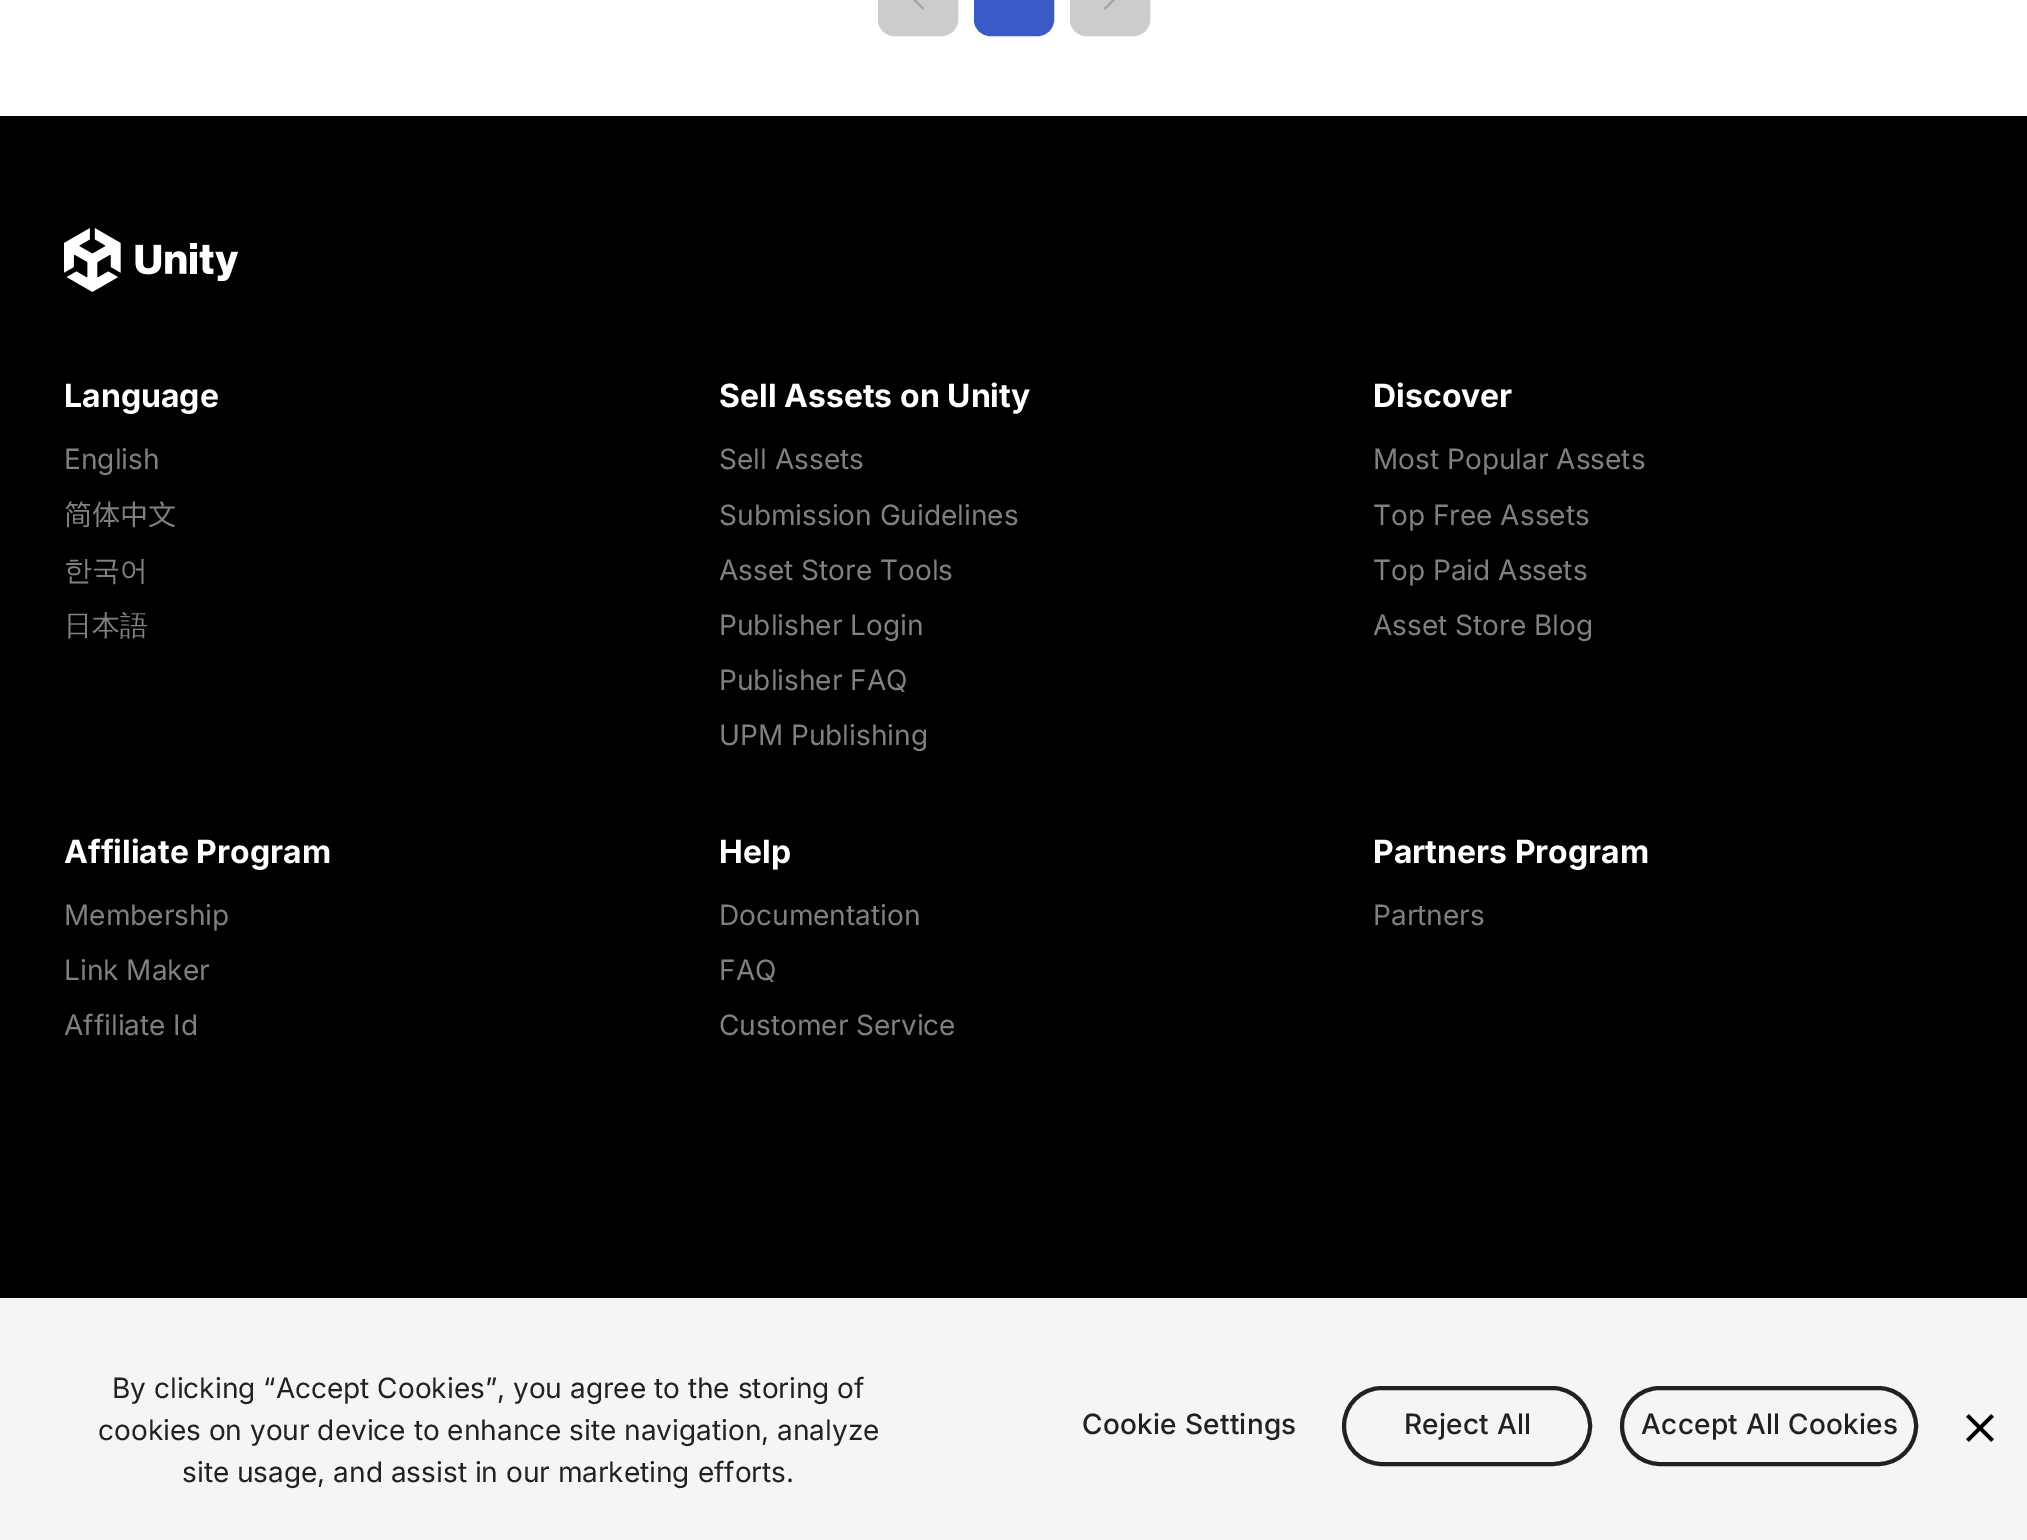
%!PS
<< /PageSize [2027 1540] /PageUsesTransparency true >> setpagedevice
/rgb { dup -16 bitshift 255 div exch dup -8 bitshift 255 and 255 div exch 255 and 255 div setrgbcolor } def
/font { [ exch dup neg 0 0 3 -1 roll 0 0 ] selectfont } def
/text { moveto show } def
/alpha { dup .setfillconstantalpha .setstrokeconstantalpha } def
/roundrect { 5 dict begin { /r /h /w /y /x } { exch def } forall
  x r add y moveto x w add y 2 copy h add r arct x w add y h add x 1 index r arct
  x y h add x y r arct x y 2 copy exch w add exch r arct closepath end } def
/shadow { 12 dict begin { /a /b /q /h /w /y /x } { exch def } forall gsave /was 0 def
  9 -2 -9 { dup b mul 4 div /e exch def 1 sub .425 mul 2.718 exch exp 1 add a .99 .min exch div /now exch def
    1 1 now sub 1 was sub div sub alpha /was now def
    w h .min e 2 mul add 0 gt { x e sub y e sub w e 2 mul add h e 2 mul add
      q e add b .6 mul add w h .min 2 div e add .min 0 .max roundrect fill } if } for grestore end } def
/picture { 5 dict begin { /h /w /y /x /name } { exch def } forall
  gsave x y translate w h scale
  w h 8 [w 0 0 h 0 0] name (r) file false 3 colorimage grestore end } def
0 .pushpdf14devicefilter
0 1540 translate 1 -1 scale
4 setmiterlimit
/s1 { /Inter-Bold 32 font 16#FFFFFF rgb } def
/s2 { /Inter-Regular 28 font 16#808080 rgb } def
/s3 { /NotoSansCJKSC-Regular 28 font 16#808080 rgb } def
/s4 { /WenQuanYiZenHei-Medium 28 font 16#808080 rgb } def
/s5 { /Inter-Regular 28 font 16#212121 rgb } def
16#FFFFFF rgb
0 0 2027 1540 rectfill
16#CCCCCC rgb
879 -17 78 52 15 roundrect gsave fill grestore
2 setlinewidth
stroke
(pic1.raw) 913 0 12 10 picture
16#3A5BC7 rgb
975 -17 78 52 15 roundrect gsave fill grestore
stroke
16#CCCCCC rgb
1071 -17 78 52 15 roundrect gsave fill grestore
stroke
(pic2.raw) 1103 0 12 10 picture
16#000000 rgb
0 116 2027 1182 rectfill
(pic3.raw) 64 228 175 64 picture
s1
(Language) 64 407 text
s2
(English) 64 469 text
s3
(简体中文) 64 525 text
s4
(한국어) 64 580 text
(日本語) 64 635 text
s1
(Sell Assets on Unity) 719 407 text
s2
(Sell Assets) 719 469 text
(Submission Guidelines) 719 525 text
(Asset Store Tools) 719 580 text
(Publisher Login) 719 635 text
(Publisher FAQ) 719 690 text
(UPM Publishing) 719 745 text
s1
(Discover) 1373 407 text
s2
(Most Popular Assets) 1373 469 text
(Top Free Assets) 1373 525 text
(Top Paid Assets) 1373 580 text
(Asset Store Blog) 1373 635 text
s1
(Affiliate Program) 64 863 text
s2
(Membership) 64 925 text
(Link Maker) 64 980 text
(Affiliate Id) 64 1035 text
s1
(Help) 719 863 text
s2
(Documentation) 719 925 text
(FAQ) 719 980 text
(Customer Service) 719 1035 text
s1
(Partners Program) 1373 863 text
s2
(Partners) 1373 925 text
16#000000 rgb
0 1298 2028 242 0 18 0.2 shadow
16#F5F5F5 rgb
0 1298 2027 242 rectfill
s5
(By clicking “Accept Cookies”, you agree to the storing of) 112 1398 text
(cookies on your device to enhance site navigation, analyze) 98 1440 text
(site usage, and assist in our marketing efforts.) 182 1482 text
/Inter-Medium 28 font
1082 1434 moveto 0.25 0 (Cookie Settings) ashow
4 setlinewidth
1344 1388 246 76 38 roundrect stroke
1404 1434 moveto 0.25 0 (Reject All) ashow
1622 1388 294 76 38 roundrect stroke
1641 1434 moveto 0.25 0 (Accept All Cookies) ashow
(pic4.raw) 1966 1414 28 28 picture
.poppdf14devicefilter showpage
